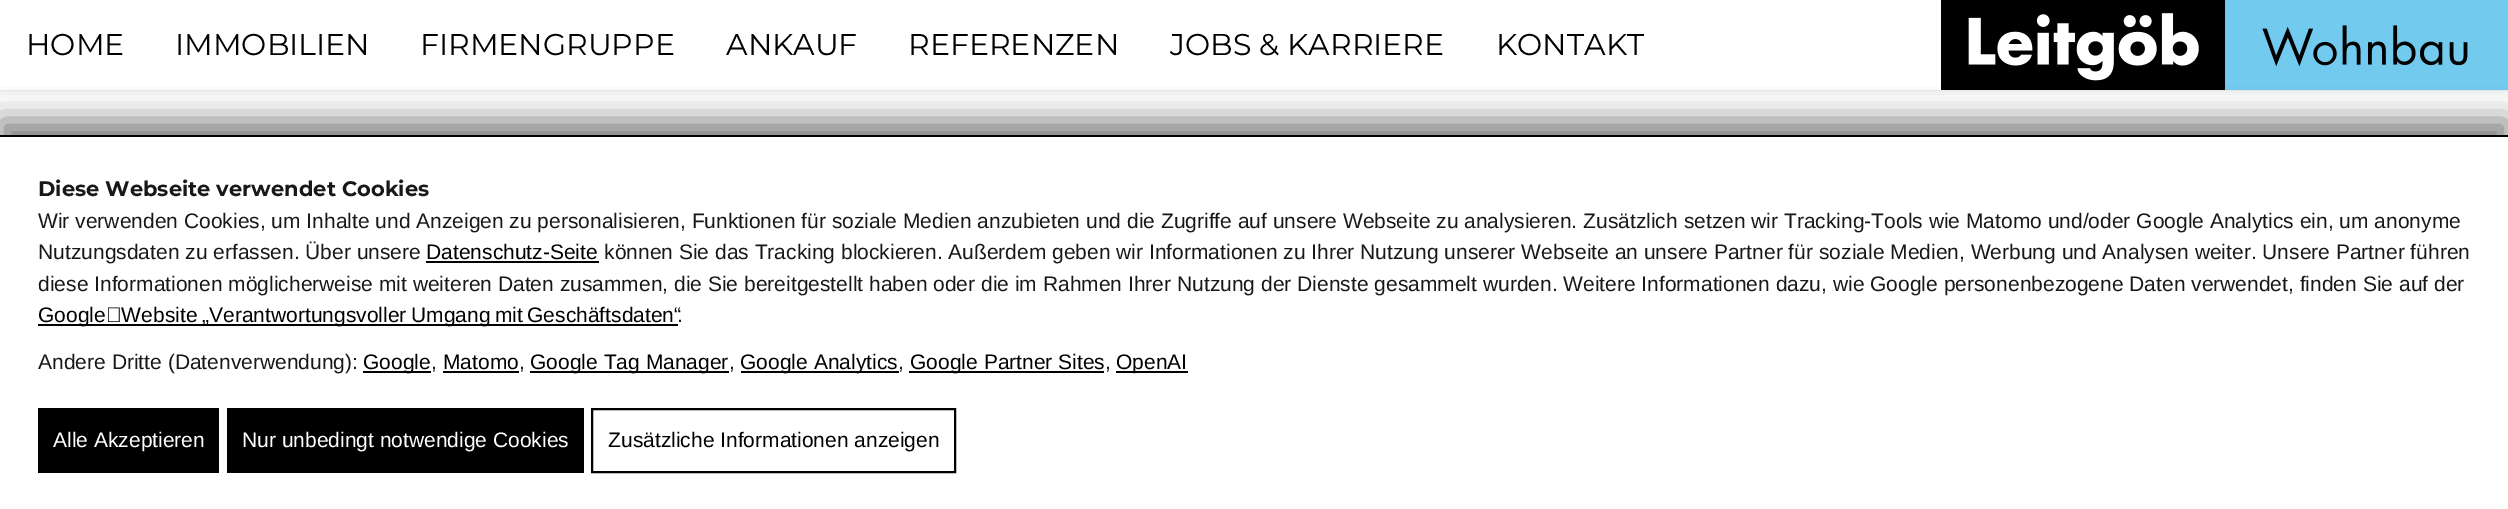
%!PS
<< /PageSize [2508 509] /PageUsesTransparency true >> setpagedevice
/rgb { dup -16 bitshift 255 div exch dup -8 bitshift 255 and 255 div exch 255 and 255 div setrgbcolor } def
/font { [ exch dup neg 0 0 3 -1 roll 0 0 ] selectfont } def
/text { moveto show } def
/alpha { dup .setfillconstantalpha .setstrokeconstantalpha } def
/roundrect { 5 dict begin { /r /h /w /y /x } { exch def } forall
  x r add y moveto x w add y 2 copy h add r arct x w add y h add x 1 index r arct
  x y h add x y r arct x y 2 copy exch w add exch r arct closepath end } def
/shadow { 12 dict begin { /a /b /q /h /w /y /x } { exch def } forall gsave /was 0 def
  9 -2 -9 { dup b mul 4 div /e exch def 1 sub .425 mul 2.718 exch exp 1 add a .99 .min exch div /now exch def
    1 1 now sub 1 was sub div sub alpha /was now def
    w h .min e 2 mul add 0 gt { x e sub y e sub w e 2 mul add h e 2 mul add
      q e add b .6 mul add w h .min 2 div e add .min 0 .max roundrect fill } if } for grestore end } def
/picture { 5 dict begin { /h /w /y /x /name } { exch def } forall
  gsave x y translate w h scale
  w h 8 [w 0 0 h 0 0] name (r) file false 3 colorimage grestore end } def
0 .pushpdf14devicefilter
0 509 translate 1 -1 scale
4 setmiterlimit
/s1 { /Montserrat-Thin 30 font 16#000000 rgb } def
/s2 { /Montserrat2-Thin 21 font 16#1A171B rgb } def
/s3 { /LiberationSans-Regular 21 font 16#1A171B rgb } def
/s4 { /LiberationSans-Regular 21 font 16#000000 rgb } def
/s5 { /LiberationSans-Regular 21 font 16#FFFFFF rgb } def
16#FFFFFF rgb
0 0 2508 509 rectfill
gsave
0 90 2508 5 rectclip
16#000000 rgb
0 0 2508 90 0 4 0.16 shadow
grestore
s1
(HOME) 26 55 text
(IMMOBILIEN) 175 55 text
(FIRMENGRUPPE) 420 55 text
(ANKAUF) 726 55 text
(REFERENZEN) 908 55 text
(JOBS & KARRIERE) 1170 55 text
(KONTAKT) 1496 55 text
(pic1.raw) 1941 0 567 90 picture
0 120 2508 375 0 15 0.5 shadow
16#FFFFFF rgb
0 137 2508 372 rectfill
16#000000 rgb
0 135 2508 2 rectfill
s2
(Diese Webseite verwendet Cookies) 38 196 text
s3
(Wir verwenden Cookies, um Inhalte und Anzeigen zu personalisieren, Funktionen für soziale Medien anzubieten und die Zugriffe auf unsere Webseite zu analysieren. Zusätzlich setzen wir Tracking-Tools wie Matomo und/oder Google Analytics ein, um anonyme) 38 228 text
(Nutzungsdaten zu erfassen. Über unsere) 38 259 text
s4
(Datenschutz-Seite) 426 259 text
426 261 173 2 rectfill
s3
(können Sie das Tracking blockieren. Außerdem geben wir Informationen zu Ihrer Nutzung unserer Webseite an unsere Partner für soziale Medien, Werbung und Analysen weiter. Unsere Partner führen) 604 259 text
(diese Informationen möglicherweise mit weiteren Daten zusammen, die Sie bereitgestellt haben oder die im Rahmen Ihrer Nutzung der Dienste gesammelt wurden. Weitere Informationen dazu, wie Google personenbezogene Daten verwendet, finden Sie auf der) 38 291 text
16#000000 rgb
38 324 640 2 rectfill
(Google‑Website) 38 322 text
(„Verantwortungsvoller) 202 322 text
(Umgang) 411 322 text
(mit) 495 322 text
(Geschäftsdaten“) 527 322 text
s3
(.) 677 322 text
(Andere Dritte \(Datenverwendung\):) 38 369 text
16#000000 rgb
363 371 68 2 rectfill
(Google) 363 369 text
s3
(,) 431 369 text
s4
(Matomo) 443 369 text
443 371 76 2 rectfill
s3
(,) 519 369 text
16#000000 rgb
530 371 199 2 rectfill
(Google Tag Manager) 530 369 text
s3
(,) 729 369 text
16#000000 rgb
741 371 158 2 rectfill
(Google Analytics) 740 369 text
s3
(,) 898 369 text
16#000000 rgb
909 371 195 2 rectfill
(Google Partner Sites) 910 369 text
s3
(,) 1105 369 text
16#000000 rgb
1116 371 72 2 rectfill
(OpenAI) 1116 369 text
38 408 181 65 rectfill
s5
(Alle Akzeptieren) 53 447 text
16#000000 rgb
227 408 357 65 rectfill
s5
(Nur unbedingt notwendige Cookies) 242 447 text
16#000000 rgb
2 setlinewidth
592 409 363 63 rectstroke
(Zusätzliche Informationen anzeigen) 608 447 text
.poppdf14devicefilter showpage
